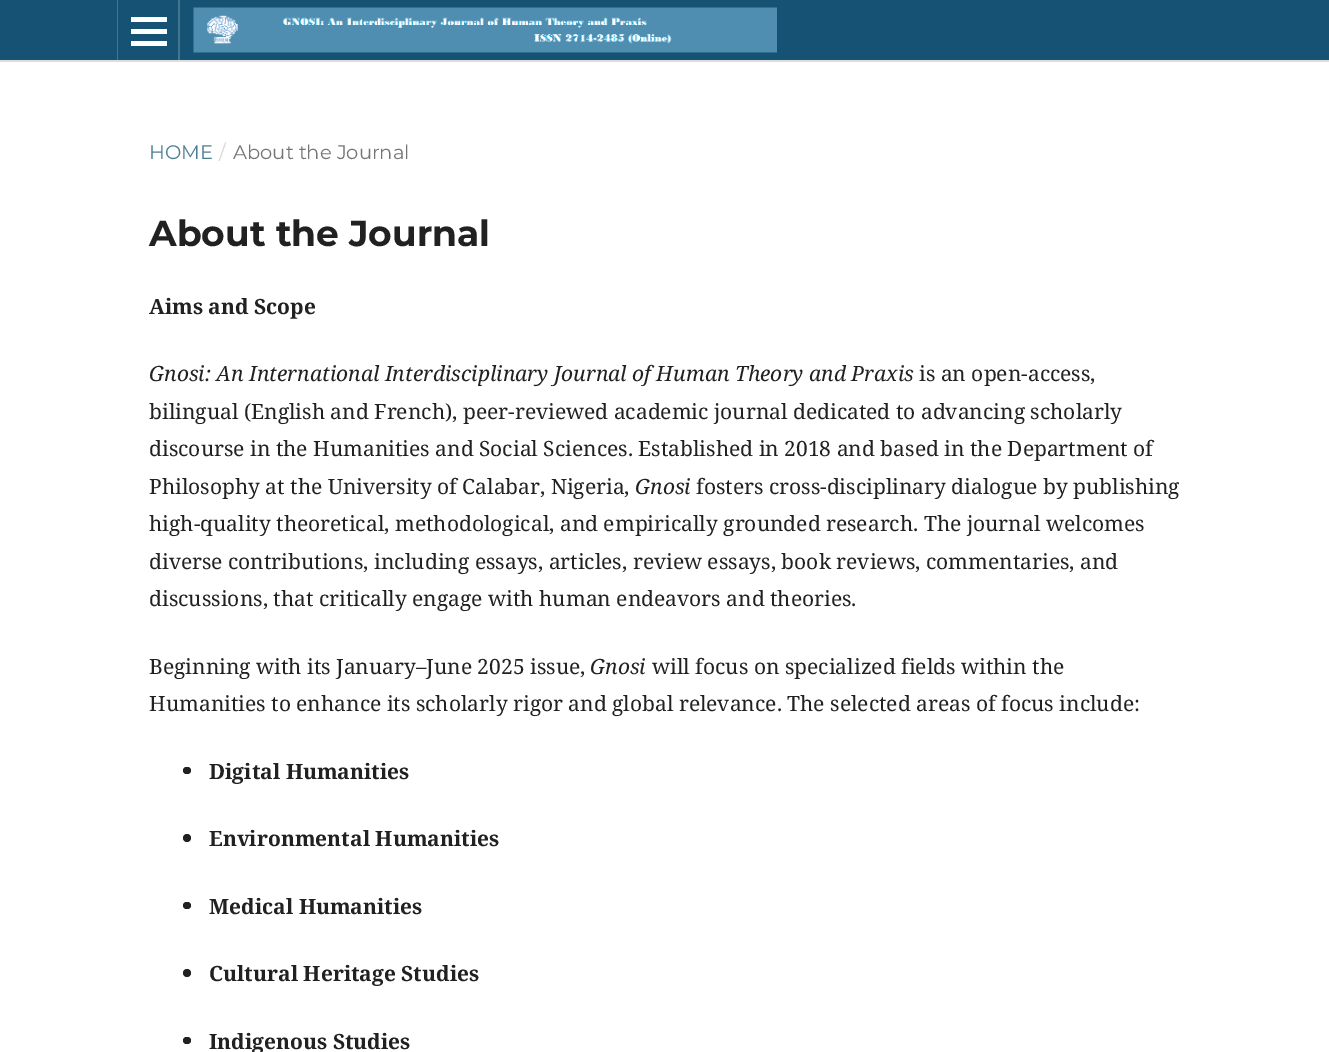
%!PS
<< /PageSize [1329 1052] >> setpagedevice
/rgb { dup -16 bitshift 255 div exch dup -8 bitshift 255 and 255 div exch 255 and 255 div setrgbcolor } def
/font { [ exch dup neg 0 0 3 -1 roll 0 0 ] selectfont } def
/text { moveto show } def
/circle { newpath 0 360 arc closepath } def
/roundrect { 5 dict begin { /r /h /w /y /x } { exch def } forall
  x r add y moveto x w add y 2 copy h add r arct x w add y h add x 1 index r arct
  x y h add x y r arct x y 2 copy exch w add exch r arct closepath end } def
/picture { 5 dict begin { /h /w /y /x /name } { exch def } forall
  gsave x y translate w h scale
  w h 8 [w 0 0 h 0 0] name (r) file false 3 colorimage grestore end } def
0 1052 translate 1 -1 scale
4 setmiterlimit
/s1 { /Montserrat-Regular 19.5 font 16#4B7D92 rgb } def
/s2 { /Montserrat-Regular 19.5 font 16#D6D6D6 rgb } def
/s3 { /Montserrat-Regular 19.5 font 16#757575 rgb } def
/s4 { /Montserrat-Bold 36 font 16#212121 rgb } def
/s5 { /NotoSerif-Bold 21 font 16#212121 rgb } def
/s6 { /NotoSerif-Italic 21 font 16#212121 rgb } def
/s7 { /NotoSerif-Regular 21 font 16#212121 rgb } def
16#FFFFFF rgb
0 0 1329 1052 rectfill
16#155274 rgb
0 0 1329 60 rectfill
16#DDDDDD rgb
0 60 1329 2 rectfill
16#447590 rgb
117 0 1 60 rectfill
178 0 2 60 rectfill
16#FFFFFF rgb
131 41 36 5 rectfill
131 17 36 5 rectfill
131 29 36 5 rectfill
(pic1.raw) 193 7 584 46 picture
s1
(HOME) 149 159 text
s2
(/) 219 159 text
s3
(About the Journal) 233 159 text
s4
(About the Journal) 149 246 text
s5
(Aims and Scope) 149 314 text
s6
(Gnosi: An International Interdisciplinary Journal of Human Theory and Praxis) 149 381 text
s7
(is an open-access,) 919 381 text
(bilingual \(English and French\), peer-reviewed academic journal dedicated to advancing scholarly) 149 419 text
(discourse in the Humanities and Social Sciences. Established in 2018 and based in the Department of) 149 456 text
(Philosophy at the University of Calabar, Nigeria,) 149 494 text
s6
(Gnosi) 635 494 text
s7
(fosters cross-disciplinary dialogue by publishing) 696 494 text
(high-quality theoretical, methodological, and empirically grounded research. The journal welcomes) 149 531 text
(diverse contributions, including essays, articles, review essays, book reviews, commentaries, and) 149 569 text
(discussions, that critically engage with human endeavors and theories.) 149 606 text
(Beginning with its January–June 2025 issue,) 149 674 text
s6
(Gnosi) 590 674 text
s7
(will focus on specialized fields within the) 652 674 text
(Humanities to enhance its scholarly rigor and global relevance. The selected areas of focus include:) 149 711 text
183 767 8 7 3.5 roundrect fill
s5
(Digital Humanities) 209 779 text
187 838 4 circle fill
(Environmental Humanities) 209 846 text
183 902 8 7 3.5 roundrect fill
(Medical Humanities) 209 914 text
187 973 4 circle fill
(Cultural Heritage Studies) 209 981 text
183 1037 8 7 3.5 roundrect fill
(Indigenous Studies) 209 1049 text
showpage
